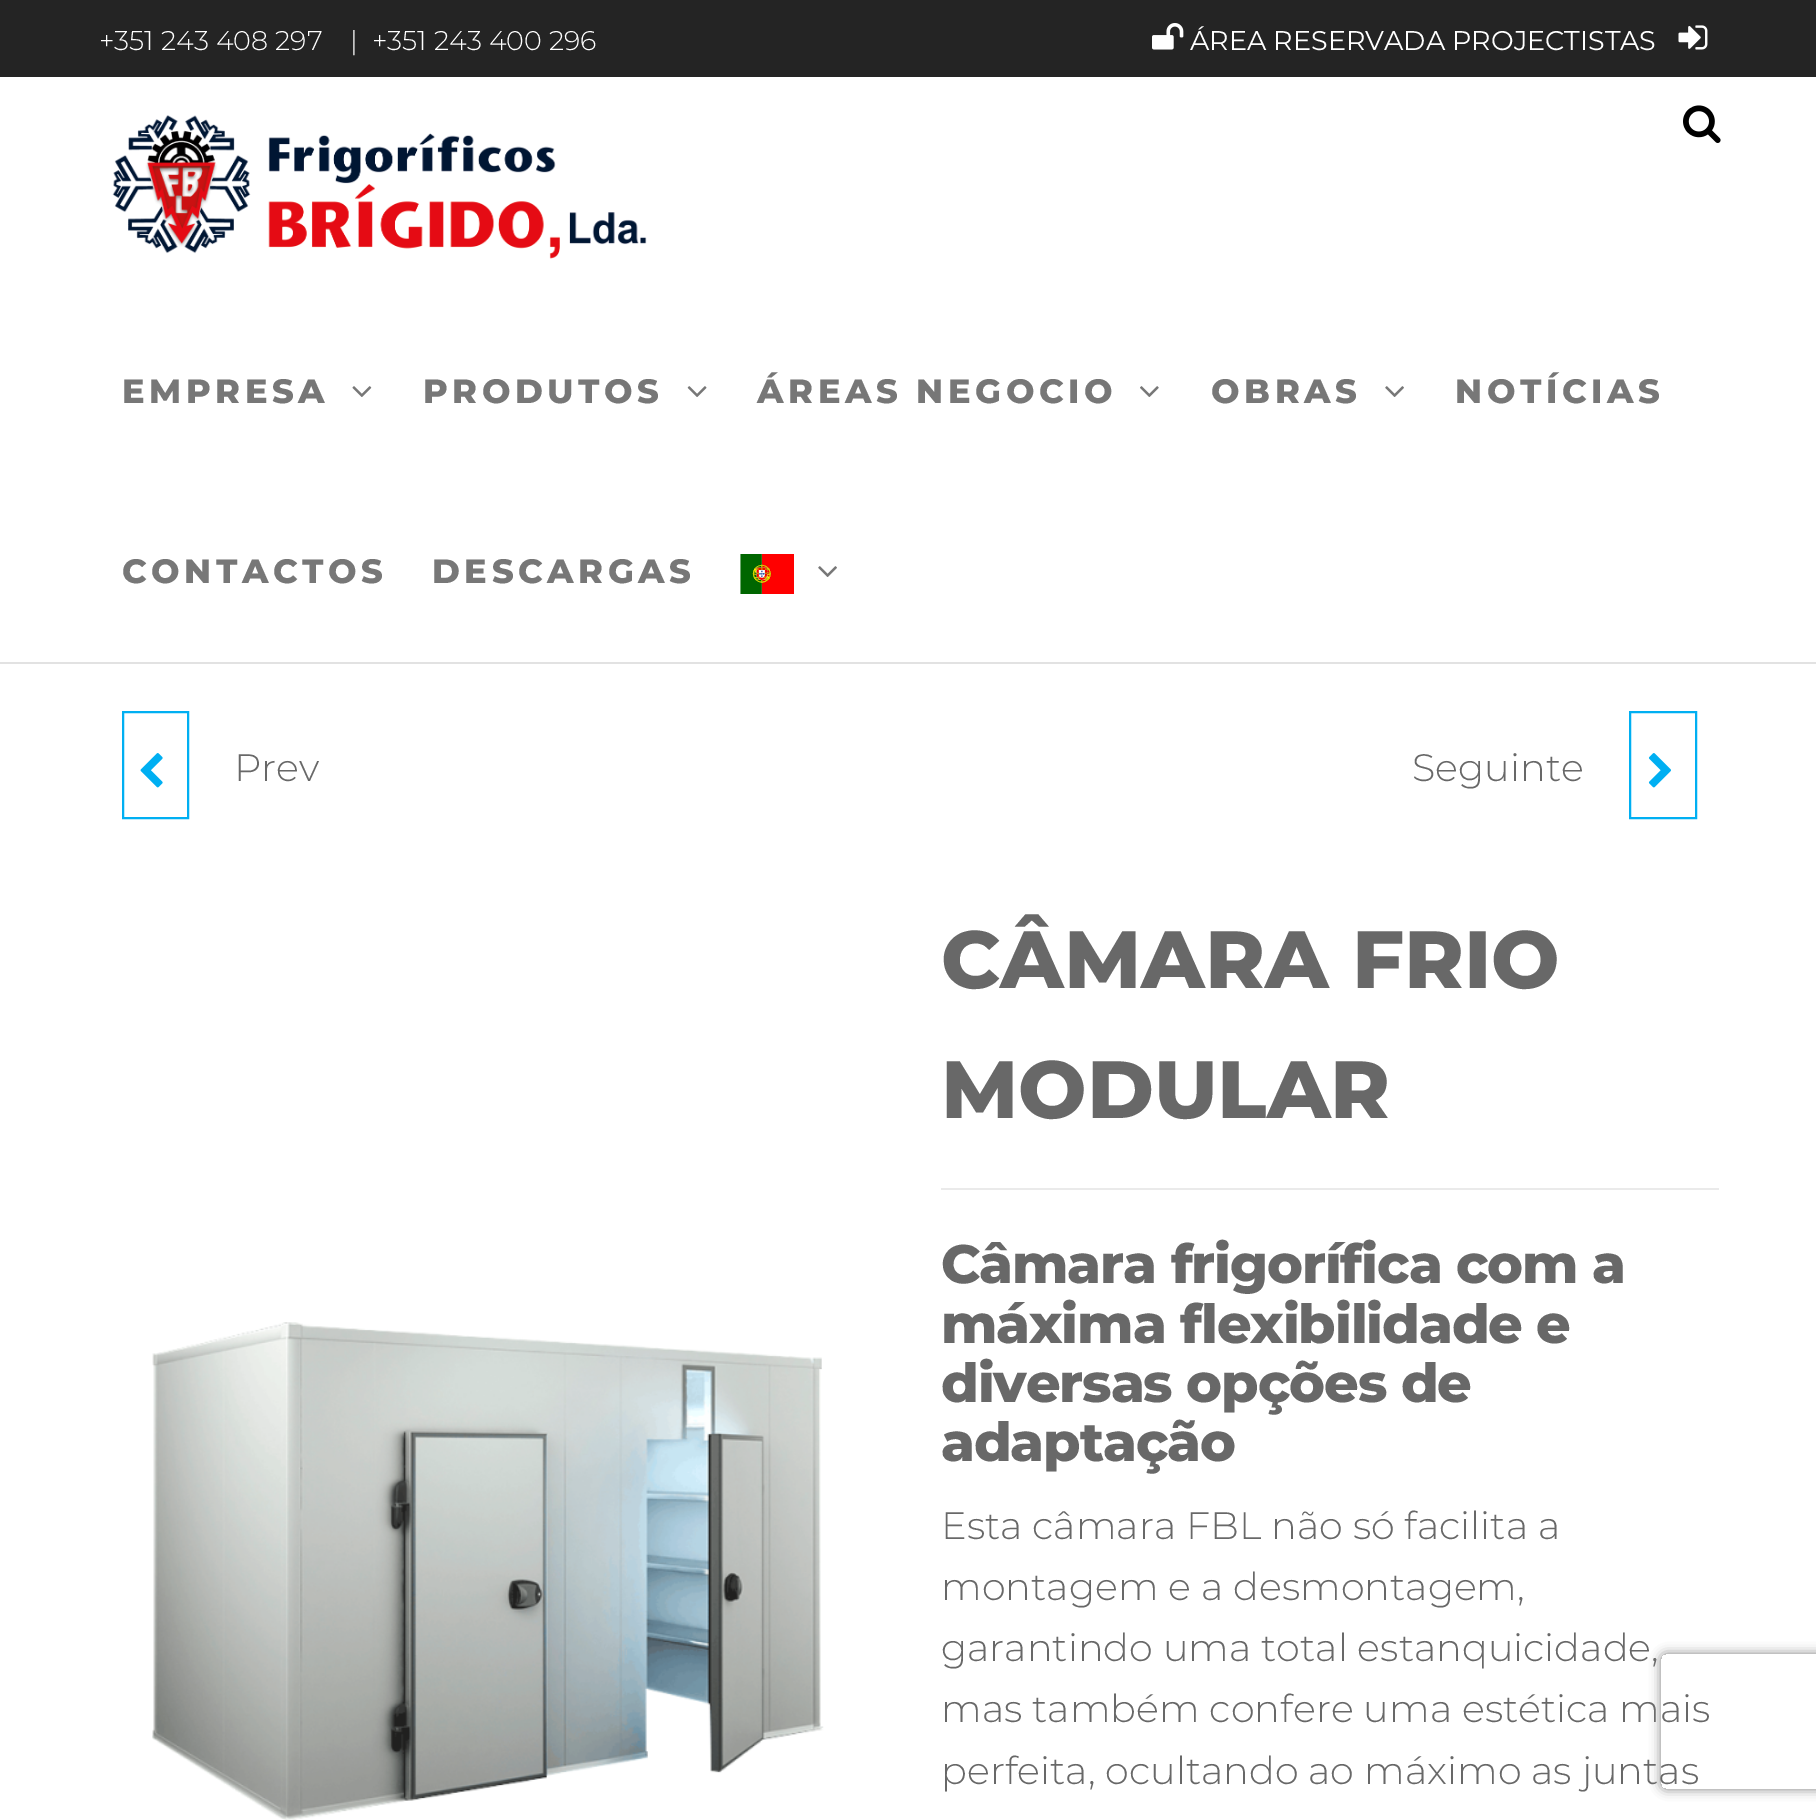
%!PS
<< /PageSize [1816 1820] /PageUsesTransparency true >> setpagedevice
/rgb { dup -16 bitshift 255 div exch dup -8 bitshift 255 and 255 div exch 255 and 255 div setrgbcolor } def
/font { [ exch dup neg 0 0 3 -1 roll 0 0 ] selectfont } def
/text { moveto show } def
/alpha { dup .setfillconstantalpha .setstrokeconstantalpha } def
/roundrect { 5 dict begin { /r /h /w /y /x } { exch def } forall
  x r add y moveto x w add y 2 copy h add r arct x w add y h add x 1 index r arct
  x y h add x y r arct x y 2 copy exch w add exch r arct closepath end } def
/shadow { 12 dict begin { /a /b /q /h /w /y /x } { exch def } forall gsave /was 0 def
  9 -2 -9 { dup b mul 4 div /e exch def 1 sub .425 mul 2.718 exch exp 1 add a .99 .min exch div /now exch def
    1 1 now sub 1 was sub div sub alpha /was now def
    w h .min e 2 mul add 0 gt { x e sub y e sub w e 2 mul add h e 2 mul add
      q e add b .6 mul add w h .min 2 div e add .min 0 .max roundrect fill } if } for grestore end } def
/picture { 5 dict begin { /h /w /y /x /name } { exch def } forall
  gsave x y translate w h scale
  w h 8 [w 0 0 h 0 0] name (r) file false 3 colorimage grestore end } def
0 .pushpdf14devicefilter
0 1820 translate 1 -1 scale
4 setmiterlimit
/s1 { /Montserrat-Light 27 font 16#FFFFFF rgb } def
/s2 { /Montserrat-Regular 27 font 16#FFFFFF rgb } def
/s3 { /Montserrat-Light 38.25 font 16#686868 rgb } def
/s4 { /Montserrat-ExtraBold 81 font 16#686868 rgb } def
16#FFFFFF rgb
0 0 1816 1820 rectfill
16#242424 rgb
0 0 1816 77 rectfill
s1
(+351 243 408 297) 99 50 text
(|) 350 50 text
(+351 243 400 296) 372 50 text
(pic1.raw) 1152 23 32 27 picture
s2
(ÁREA RESERVADA PROJECTISTAS) 1190 50 text
(pic2.raw) 1678 25 30 25 picture
16#E2E2E2 rgb
0 662 1816 2 rectfill
(pic3.raw) 112 115 535 144 picture
(pic4.raw) 1683 105 38 38 picture
/Montserrat-ExtraBold 33.75 font
16#777777 rgb
122 403 moveto 4.5 0 (EMPRESA) ashow
(pic5.raw) 352 386 20 11 picture
423 403 moveto 4.5 0 (PRODUTOS) ashow
(pic6.raw) 687 386 20 11 picture
757 403 moveto 4.5 0 (ÁREAS NEGOCIO) ashow
(pic7.raw) 1140 386 19 11 picture
1211 403 moveto 4.5 0 (OBRAS) ashow
(pic8.raw) 1385 386 19 11 picture
1455 403 moveto 4.5 0 (NOTÍCIAS) ashow
122 583 moveto 4.5 0 (CONTACTOS) ashow
432 583 moveto 4.5 0 (DESCARGAS) ashow
(pic9.raw) 740 554 54 40 picture
(pic8.raw) 818 566 19 11 picture
16#00AFF2 rgb
2 setlinewidth
123 712 65 106 rectstroke
(pic10.raw) 140 753 23 35 picture
s3
(Prev) 234 781 text
(Seguinte) 1412 781 text
16#00AFF2 rgb
1630 712 66 106 rectstroke
(pic11.raw) 1648 753 23 35 picture
(pic12.raw) 152 1322 672 498 picture
16#EAEAEA rgb
941 1188 778 2 rectfill
s4
(CÂMARA FRIO) 941 988 text
(MODULAR) 941 1118 text
/Montserrat-ExtraBold 54 font
941 1283 moveto -1.1 0 (Câmara frigorífica com a) ashow
941 1343 moveto -1.1 0 (máxima flexibilidade e) ashow
941 1402 moveto -1.1 0 (diversas opções de) ashow
941 1461 moveto -1.1 0 (adaptação) ashow
s3
(Esta câmara FBL não só facilita a) 941 1539 text
(montagem e a desmontagem,) 941 1600 text
(garantindo uma total estanquicidade,) 941 1661 text
(mas também confere uma estética mais) 941 1722 text
(perfeita, ocultando ao máximo as juntas) 941 1784 text
gsave
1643 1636 moveto 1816 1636 lineto 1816 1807 lineto 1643 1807 lineto closepath 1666 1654 moveto 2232 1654 lineto 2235 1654 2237 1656 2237 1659 curveto 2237 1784 lineto 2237 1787 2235 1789 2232 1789 curveto 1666 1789 lineto 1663 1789 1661 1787 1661 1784 curveto 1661 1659 lineto 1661 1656 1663 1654 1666 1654 curveto closepath eoclip newpath
16#808080 rgb
1661 1654 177 135 5 5.5 1 shadow
grestore
.poppdf14devicefilter showpage
